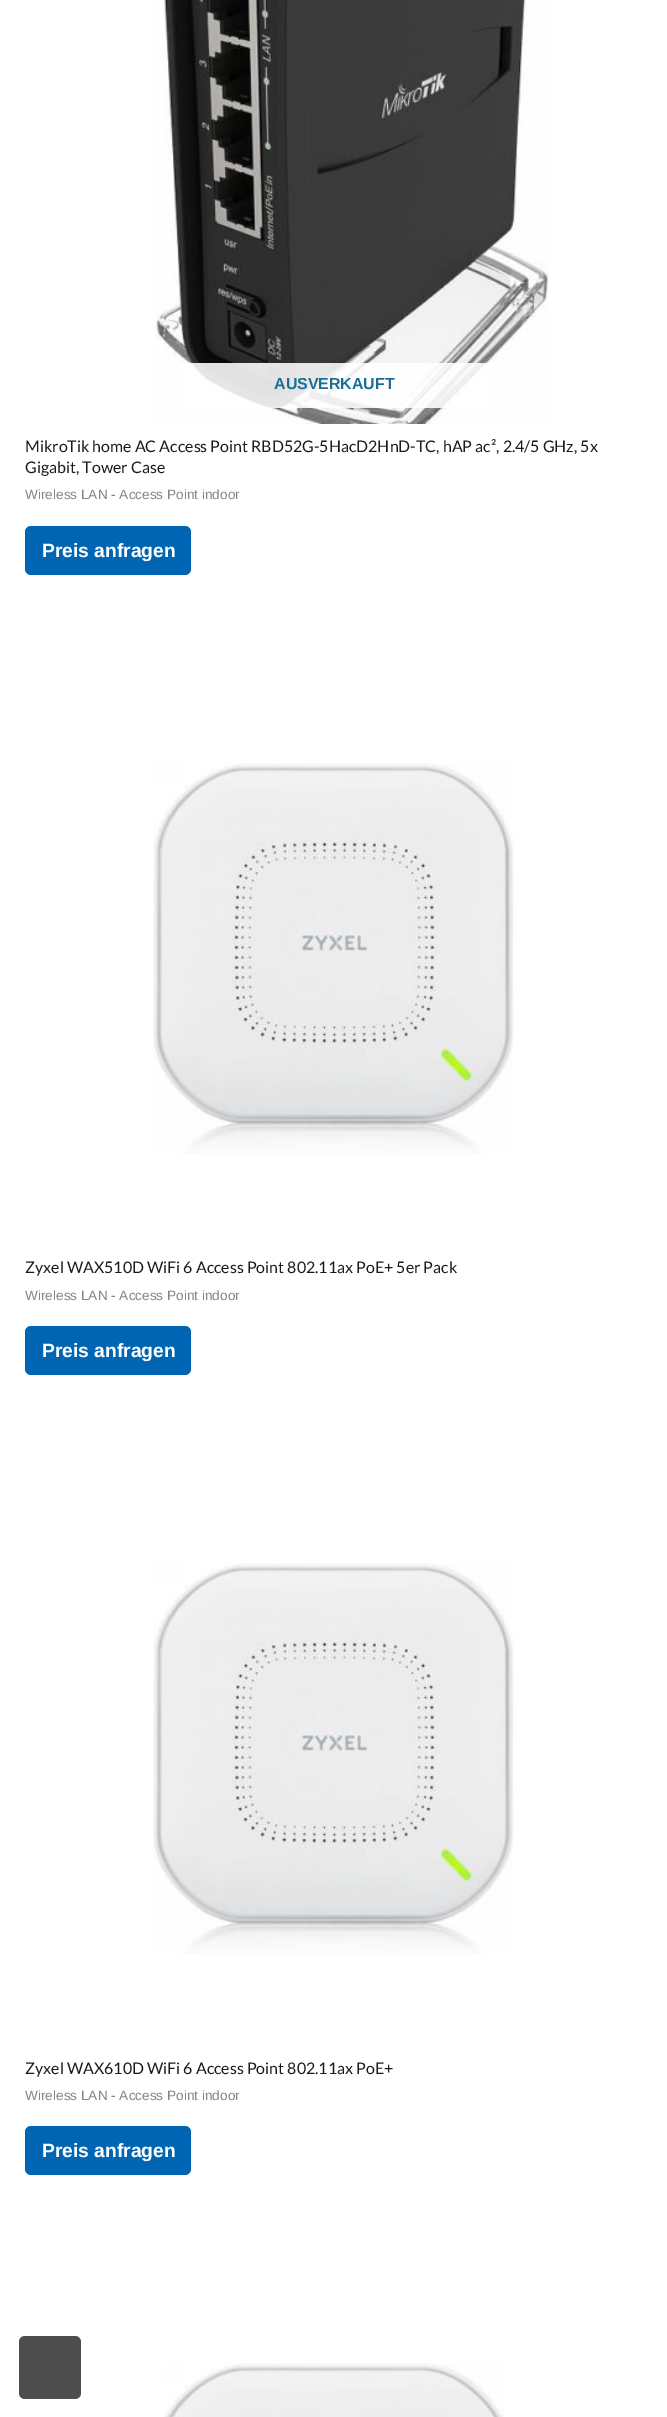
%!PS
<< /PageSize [667 2417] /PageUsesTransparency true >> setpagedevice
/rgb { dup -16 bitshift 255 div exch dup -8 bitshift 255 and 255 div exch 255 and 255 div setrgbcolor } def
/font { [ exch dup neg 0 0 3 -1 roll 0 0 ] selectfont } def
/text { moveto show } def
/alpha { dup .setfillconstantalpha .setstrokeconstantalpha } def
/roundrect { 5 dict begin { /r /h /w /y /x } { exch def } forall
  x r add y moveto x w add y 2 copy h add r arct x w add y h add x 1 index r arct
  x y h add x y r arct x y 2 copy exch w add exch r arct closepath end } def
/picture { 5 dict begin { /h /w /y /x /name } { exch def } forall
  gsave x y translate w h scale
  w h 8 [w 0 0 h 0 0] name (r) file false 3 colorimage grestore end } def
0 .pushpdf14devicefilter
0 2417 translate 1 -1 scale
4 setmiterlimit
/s1 { /LiberationSans-Bold 15.95 font 16#1B6E95 rgb } def
/s2 { /Lato-Regular 15.95 font 16#1A1A1A rgb } def
/s3 { /LiberationSans-Regular 13.6 font 16#858585 rgb } def
/s4 { /LiberationSans-Bold 19.25 font 16#FFFFFF rgb } def
16#FFFFFF rgb
0 0 667 2417 rectfill
(pic1.raw) 154 0 395 424 picture
0.88 alpha
181 363 309 45 rectfill
1 alpha
s1
(AUSVERKAUFT) 274 389 text
s2
(MikroTik home AC Access Point RBD52G-5HacD2HnD-TC, hAP ac², 2.4/5 GHz, 5x) 25 452 text
(Gigabit, Tower Case) 25 473 text
s3
(Wireless LAN - Access Point indoor) 25 499 text
16#0066B4 rgb
25 526 166 49 6 roundrect fill
s4
(Preis anfragen) 42 557 text
(pic2.raw) 153 763 361 391 picture
s2
(Zyxel WAX510D WiFi 6 Access Point 802.11ax PoE+ 5er Pack) 25 1273 text
s3
(Wireless LAN - Access Point indoor) 25 1300 text
16#0066B4 rgb
25 1326 166 49 6 roundrect fill
s4
(Preis anfragen) 42 1357 text
(pic2.raw) 153 1563 361 391 picture
s2
(Zyxel WAX610D WiFi 6 Access Point 802.11ax PoE+) 25 2074 text
s3
(Wireless LAN - Access Point indoor) 25 2100 text
16#0066B4 rgb
25 2126 166 49 6 roundrect fill
s4
(Preis anfragen) 42 2157 text
(pic3.raw) 164 2363 340 54 picture
16#4D4D4D rgb
19 2336 62 63 6 roundrect fill
.poppdf14devicefilter showpage
